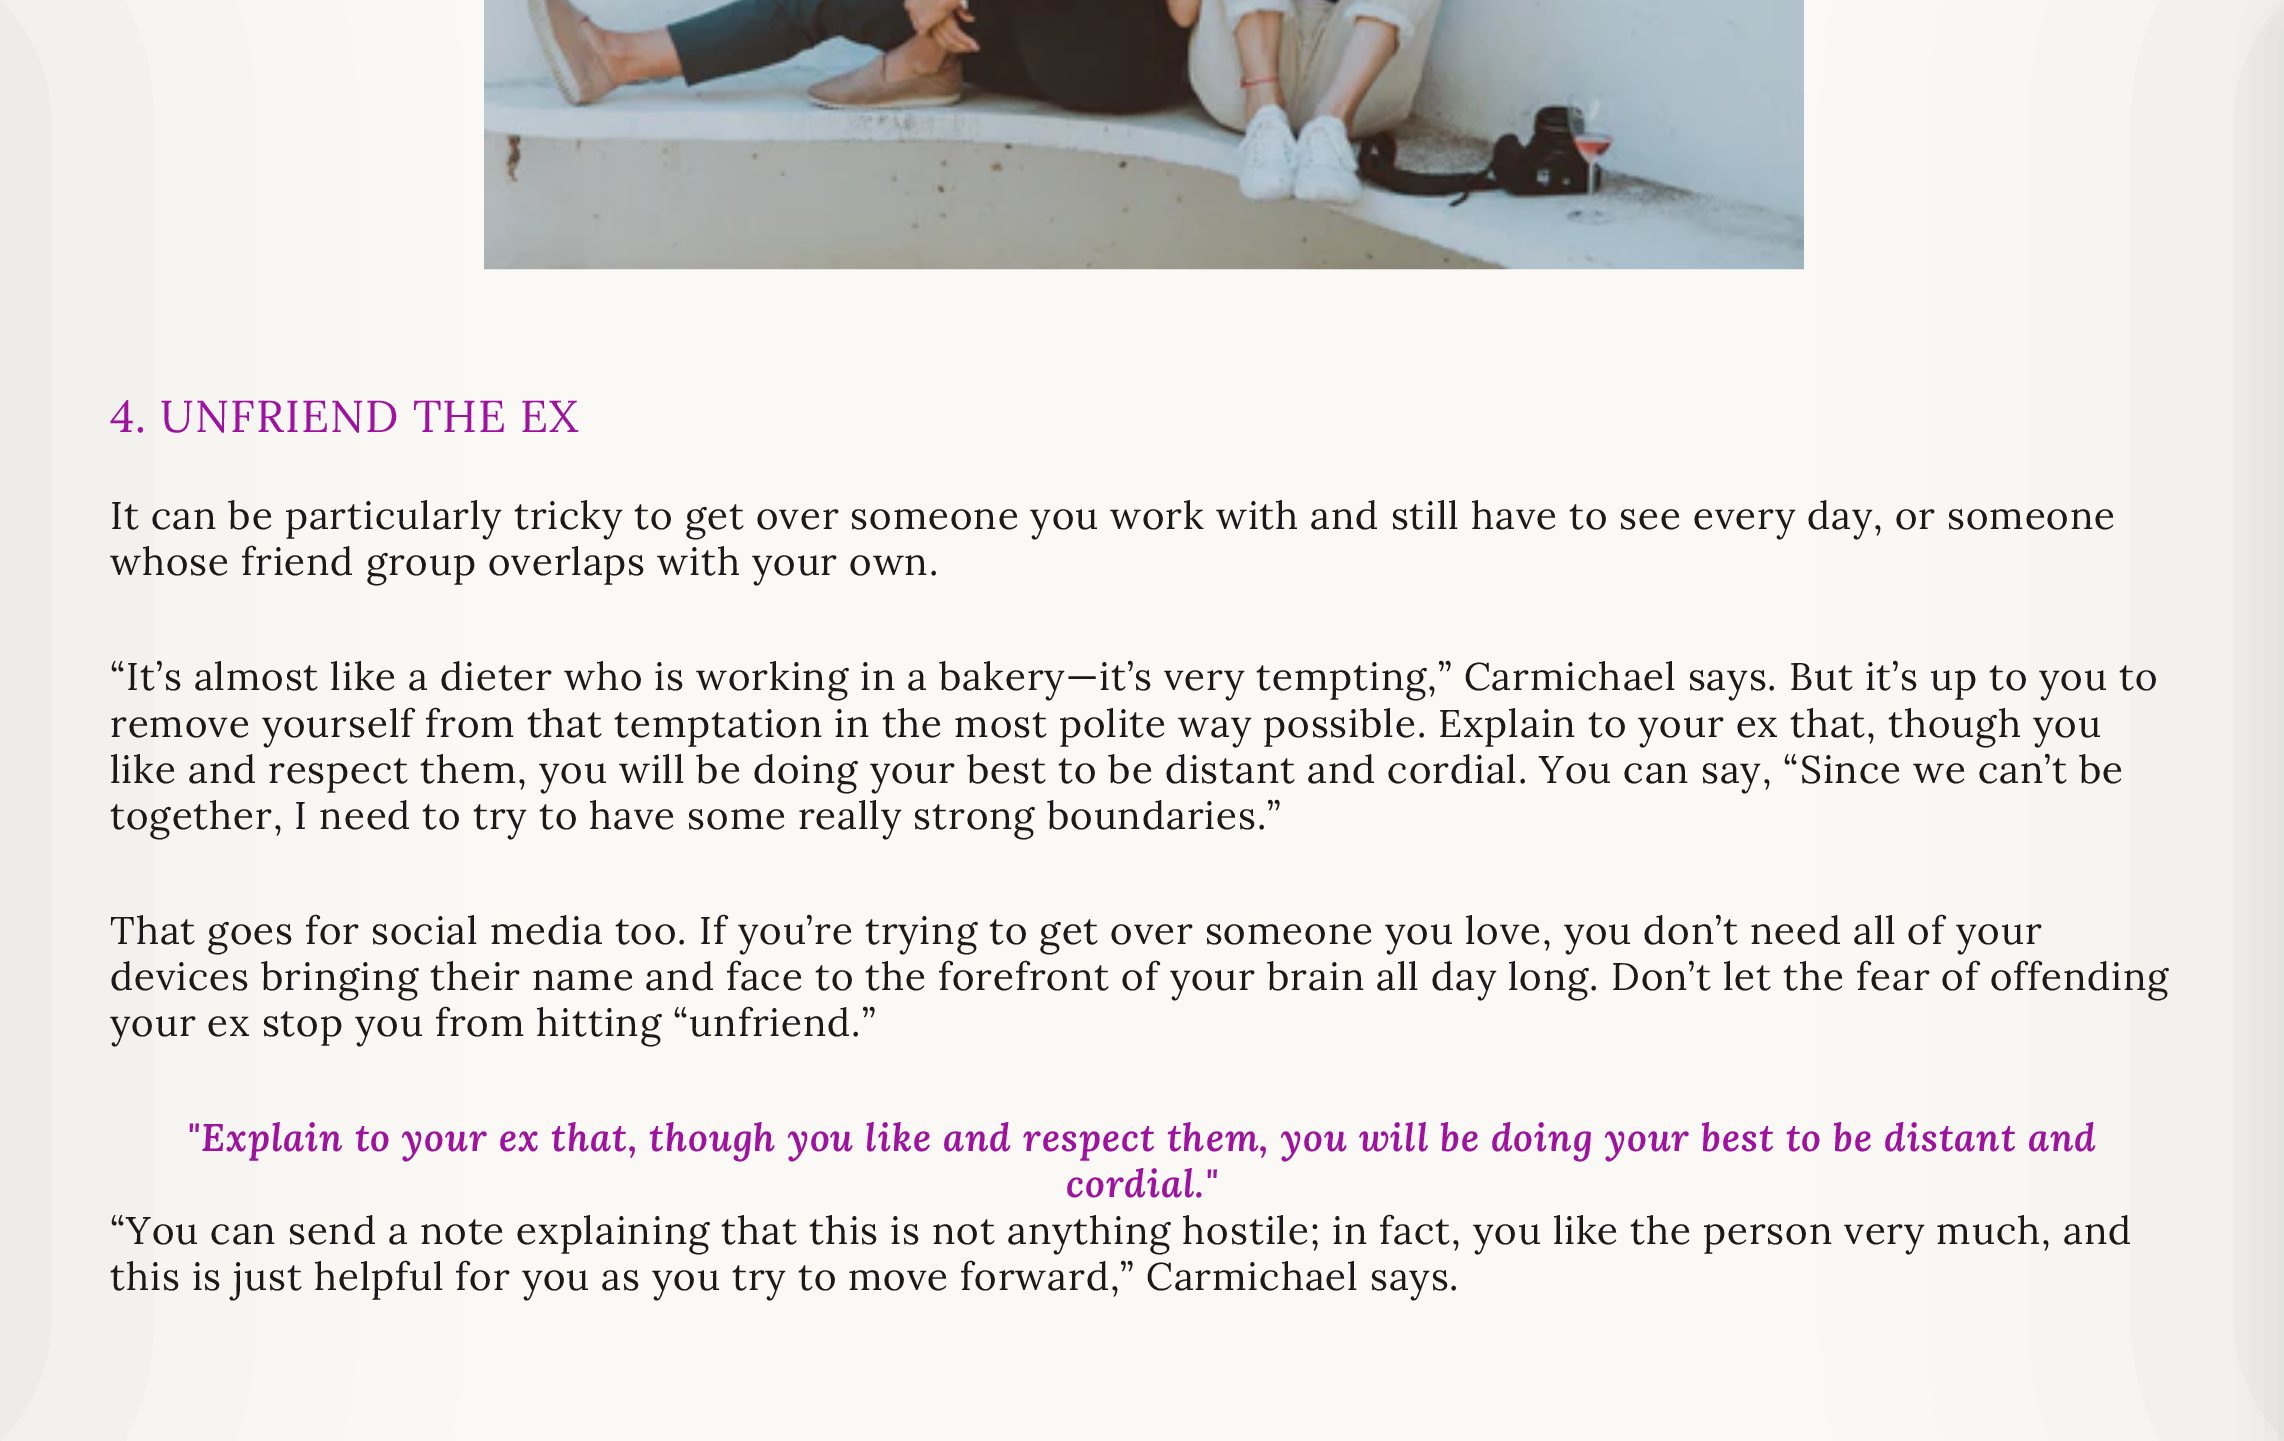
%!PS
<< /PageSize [2284 1441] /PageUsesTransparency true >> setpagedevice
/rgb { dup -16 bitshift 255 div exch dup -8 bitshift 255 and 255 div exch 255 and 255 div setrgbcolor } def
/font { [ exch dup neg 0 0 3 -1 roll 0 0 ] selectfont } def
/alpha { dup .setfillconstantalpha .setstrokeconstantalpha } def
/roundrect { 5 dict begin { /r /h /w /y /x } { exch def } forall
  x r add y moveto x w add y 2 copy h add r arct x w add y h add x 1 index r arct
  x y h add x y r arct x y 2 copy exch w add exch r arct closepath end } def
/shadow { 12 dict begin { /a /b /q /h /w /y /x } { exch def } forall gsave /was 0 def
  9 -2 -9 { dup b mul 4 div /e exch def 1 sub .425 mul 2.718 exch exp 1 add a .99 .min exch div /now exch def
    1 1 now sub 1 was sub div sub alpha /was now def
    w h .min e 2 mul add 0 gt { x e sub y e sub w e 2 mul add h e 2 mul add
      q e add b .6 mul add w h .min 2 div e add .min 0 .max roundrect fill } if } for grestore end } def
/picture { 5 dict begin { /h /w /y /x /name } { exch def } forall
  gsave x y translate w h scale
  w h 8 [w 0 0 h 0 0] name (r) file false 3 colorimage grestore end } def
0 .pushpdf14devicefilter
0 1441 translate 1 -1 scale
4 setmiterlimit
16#FAF9F6 rgb
0 0 2284 1441 rectfill
(pic1.raw) 484 0 1320 270 picture
16#000000 rgb
-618 0 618 1441 0 206 0.1 shadow
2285 0 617 1441 0 206 0.1 shadow
/Lora-Regular 44.75 font
16#9F119F rgb
110 432 moveto 1.1 0 (4. UNFRIEND THE EX) ashow
/Lora-Regular 38.5 font
16#1A1A1A rgb
110 529 moveto 0.96 0 (It can be particularly tricky to get over someone you work with and still have to see every day, or someone) ashow
110 575 moveto 0.96 0 (whose friend group overlaps with your own.) ashow
110 690 moveto 0.96 0 (“It’s almost like a dieter who is working in a bakery—it’s very tempting,” Carmichael says. But it’s up to you to) ashow
110 737 moveto 0.96 0 (remove yourself from that temptation in the most polite way possible. Explain to your ex that, though you) ashow
110 783 moveto 0.96 0 (like and respect them, you will be doing your best to be distant and cordial. You can say, “Since we can’t be) ashow
110 829 moveto 0.96 0 (together, I need to try to have some really strong boundaries.”) ashow
110 944 moveto 0.96 0 (That goes for social media too. If you’re trying to get over someone you love, you don’t need all of your) ashow
110 990 moveto 0.96 0 (devices bringing their name and face to the forefront of your brain all day long. Don’t let the fear of offending) ashow
110 1036 moveto 0.96 0 (your ex stop you from hitting “unfriend.”) ashow
/Lora-SemiBoldItalic 38.5 font
16#9F119F rgb
187 1151 moveto 0.96 0 ("Explain to your ex that, though you like and respect them, you will be doing your best to be distant and) ashow
1066 1197 moveto 0.96 0 (cordial.") ashow
/Lora-Regular 38.5 font
16#1A1A1A rgb
110 1244 moveto 0.96 0 (“You can send a note explaining that this is not anything hostile; in fact, you like the person very much, and) ashow
110 1290 moveto 0.96 0 (this is just helpful for you as you try to move forward,” Carmichael says.) ashow
16#000000 rgb
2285 28 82 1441 0 27.5 0.09 shadow
.poppdf14devicefilter showpage
